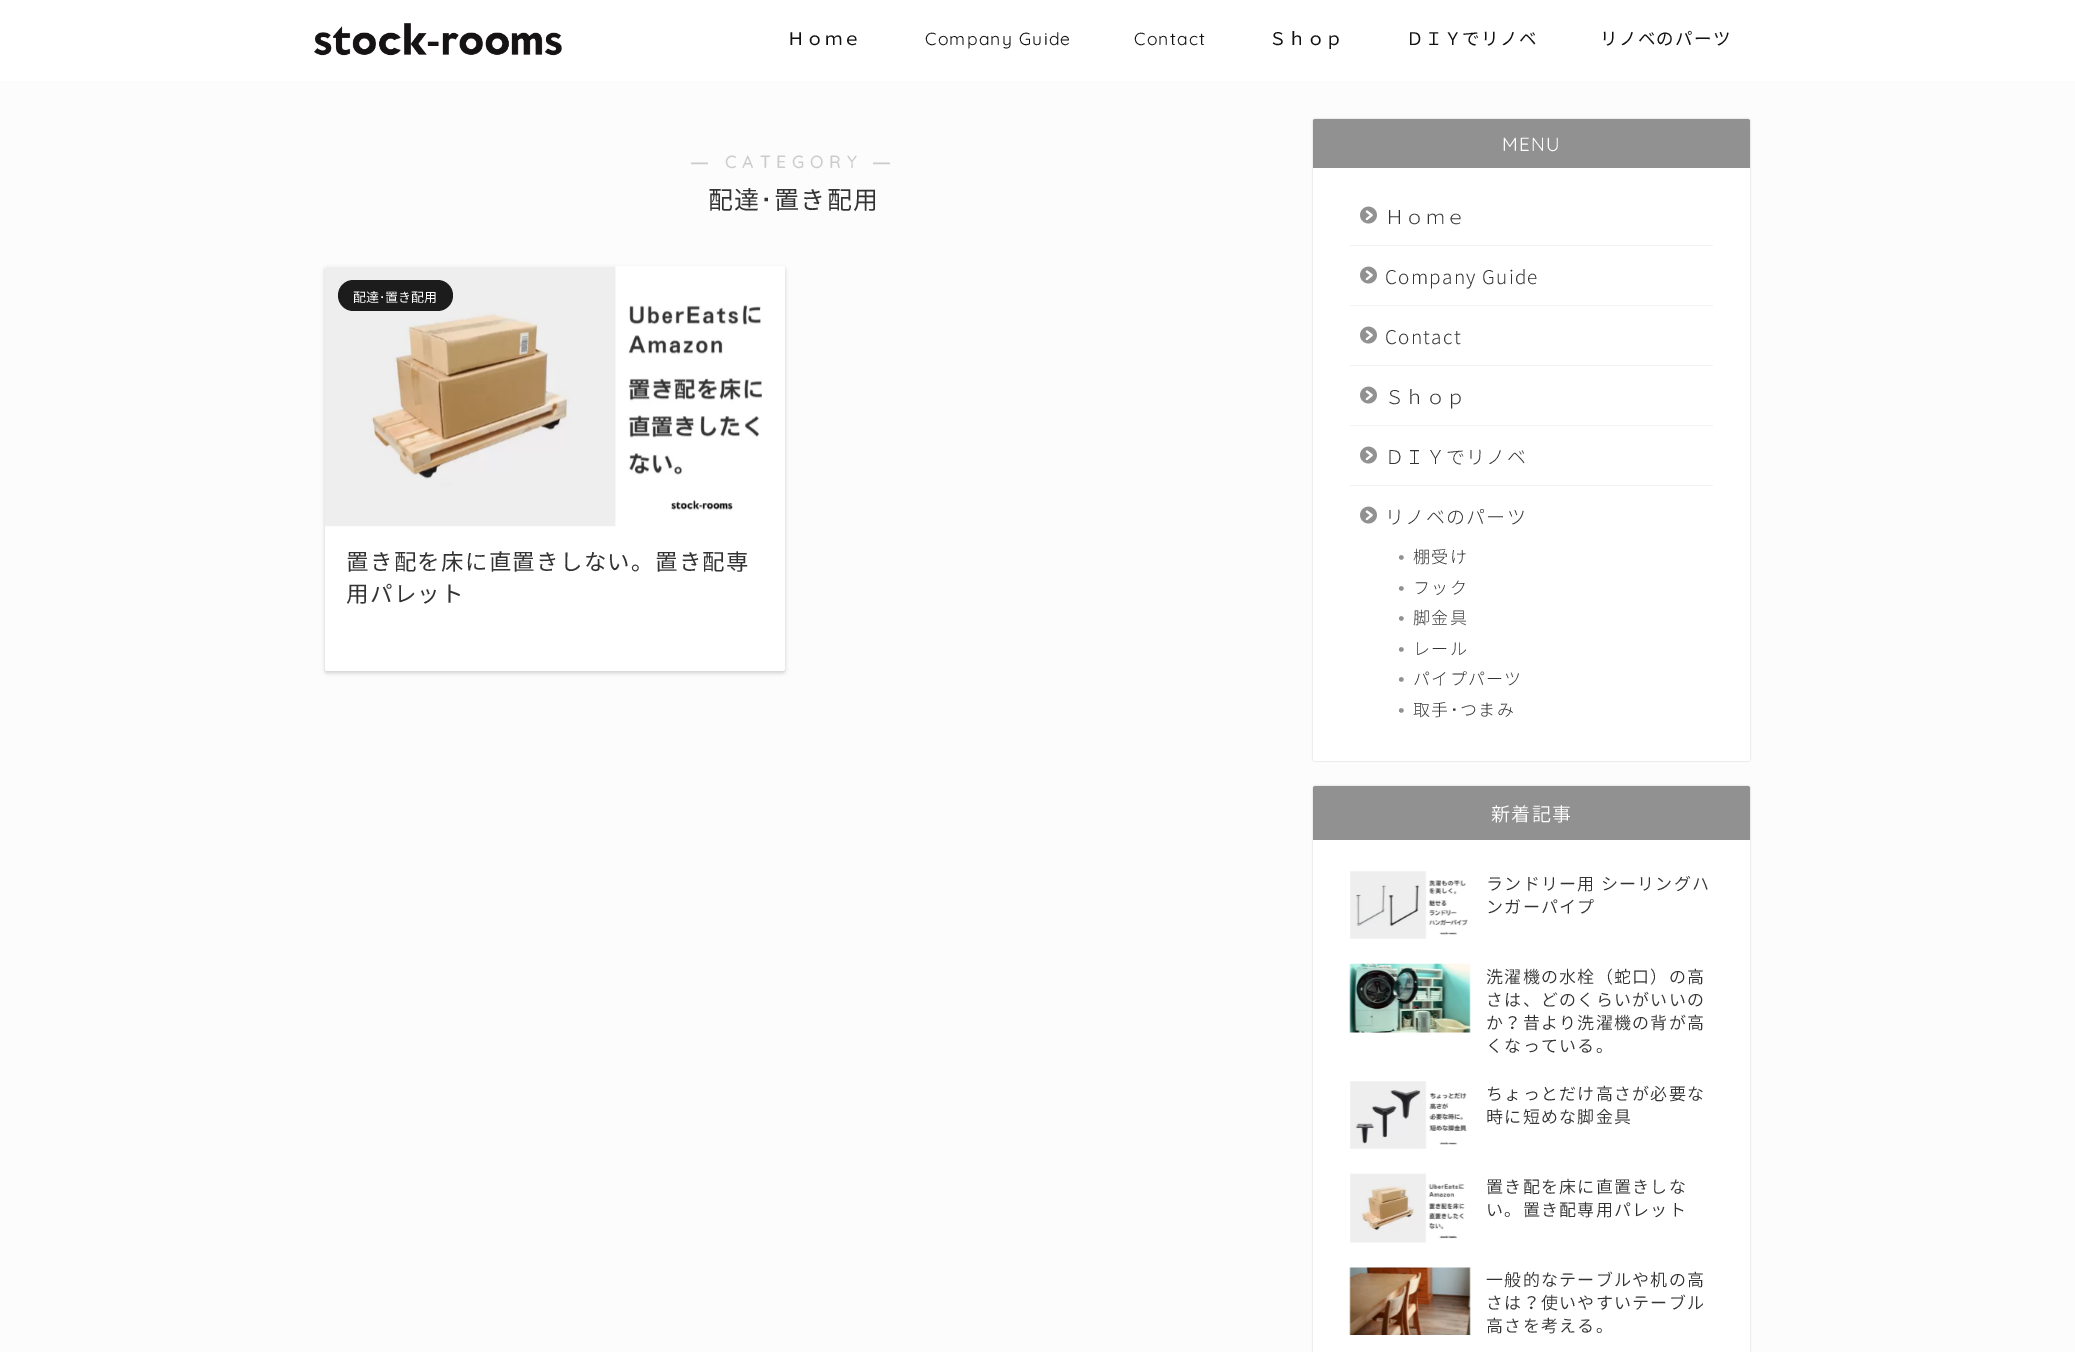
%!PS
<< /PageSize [2075 1352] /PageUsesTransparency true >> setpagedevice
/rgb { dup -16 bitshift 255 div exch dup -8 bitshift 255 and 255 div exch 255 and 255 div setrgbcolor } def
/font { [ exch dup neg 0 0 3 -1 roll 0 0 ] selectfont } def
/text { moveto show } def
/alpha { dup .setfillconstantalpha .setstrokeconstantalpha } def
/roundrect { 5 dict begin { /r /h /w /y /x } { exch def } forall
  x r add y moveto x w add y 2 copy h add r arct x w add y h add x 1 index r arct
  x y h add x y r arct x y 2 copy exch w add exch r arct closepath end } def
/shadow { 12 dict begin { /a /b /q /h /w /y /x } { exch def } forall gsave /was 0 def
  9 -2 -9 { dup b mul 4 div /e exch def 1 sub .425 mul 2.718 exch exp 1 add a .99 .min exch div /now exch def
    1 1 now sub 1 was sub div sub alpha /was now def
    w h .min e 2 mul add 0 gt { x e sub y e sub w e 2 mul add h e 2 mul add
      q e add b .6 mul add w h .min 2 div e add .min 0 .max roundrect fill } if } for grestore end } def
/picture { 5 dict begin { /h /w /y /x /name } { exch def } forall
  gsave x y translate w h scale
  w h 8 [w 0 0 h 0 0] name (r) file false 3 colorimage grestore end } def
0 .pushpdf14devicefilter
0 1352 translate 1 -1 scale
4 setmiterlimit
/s1 { /NotoSansJP-Regular 13 font 16#FFFFFF rgb } def
/s2 { /IPAPGothic-Regular 13 font 16#FFFFFF rgb } def
16#FCFCFC rgb
0 0 2075 1352 rectfill
16#FFFFFF rgb
0 0 2075 81 rectfill
(pic1.raw) 314 23 248 33 picture
/NotoSansJP-Regular 17.5 font
16#111111 rgb
787 45 moveto 1.25 0 (Ｈｏｍｅ) ashow
/Quicksand-Light 17.5 font
925 45 moveto 1.25 0 (Company Guide) ashow
1134 45 moveto 1.25 0 (Contact) ashow
/NotoSansJP-Regular 17.5 font
1269 45 moveto 1.25 0 (Ｓｈｏｐ) ashow
1406 45 moveto 1.25 0 (ＤＩＹでリノベ) ashow
1600 45 moveto 1.25 0 (リノベのパーツ) ashow
/LiberationSans-Bold 17 font
16#CCCCCC rgb
691 168 moveto 6.25 0 (―) ashow
/Quicksand-Bold 17 font
725 168 moveto 6.25 0 (CATEGORY) ashow
/LiberationSans-Bold 17 font
873 168 moveto 6.25 0 (―) ashow
/NotoSansJP-Regular 25 font
16#333333 rgb
708 209 moveto 1.25 0 (配達) ashow
/IPAPGothic-Regular 25 font
760 209 moveto 1.25 0 (･) ashow
/NotoSansJP-Regular 25 font
774 209 moveto 1.25 0 (置き配用) ashow
16#000000 rgb
325 268 460 405 2.5 2 0.18 shadow
16#FFFFFF rgb
325 266 460 405 2.5 roundrect fill
(pic2.raw) 325 266 437 261 picture
16#1C1C1C rgb
338 280 115 31 15.5 roundrect fill
s1
(配達) 353 302 text
s2
(･) 379 302 text
s1
(置き配用) 385 302 text
/NotoSansJP-Regular 22.5 font
16#333333 rgb
346 570 moveto 1.25 0 (置き配を床に直置きしない。置き配専) ashow
346 602 moveto 1.25 0 (用パレット) ashow
16#000000 rgb
1313 119 437 642 2.5 1 0.18 shadow
16#FFFFFF rgb
1313 119 437 642 2.5 roundrect fill
16#919191 rgb
1315.5 119 moveto 1747.5 119 lineto 1749 119 1750 120 1750 121.5 curveto 1750 168 lineto 1313 168 lineto 1313 121.5 lineto 1313 120 1314 119 1315.5 119 curveto closepath fill
/Quicksand-Light 19 font
16#FFFFFF rgb
1502 151 moveto 1.25 0 (MENU) ashow
16#F2F2F2 rgb
1350 245 363 1 rectfill
(pic3.raw) 1360 206 17 18 picture
/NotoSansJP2-Light 19 font
16#333333 rgb
1385 224 moveto 1.25 0 (Ｈｏｍｅ) ashow
16#F2F2F2 rgb
1350 305 363 1 rectfill
(pic3.raw) 1360 266 17 18 picture
16#333333 rgb
1385 284 moveto 1.25 0 (Company Guide) ashow
16#F2F2F2 rgb
1350 365 363 1 rectfill
(pic3.raw) 1360 326 17 18 picture
16#333333 rgb
1385 344 moveto 1.25 0 (Contact) ashow
16#F2F2F2 rgb
1350 425 363 1 rectfill
(pic3.raw) 1360 386 17 18 picture
16#333333 rgb
1385 404 moveto 1.25 0 (Ｓｈｏｐ) ashow
16#F2F2F2 rgb
1350 485 363 1 rectfill
(pic3.raw) 1360 446 17 18 picture
16#333333 rgb
1385 464 moveto 1.25 0 (ＤＩＹでリノベ) ashow
(pic3.raw) 1360 506 17 18 picture
1385 524 moveto 1.25 0 (リノベのパーツ) ashow
/WenQuanYiZenHei-Medium 30 font
16#919191 rgb
1386 568 moveto 1.25 0 (・) ashow
/NotoSansJP2-Light 17 font
16#333333 rgb
1413 563 moveto 1.25 0 (棚受け) ashow
/WenQuanYiZenHei-Medium 30 font
16#919191 rgb
1386 599 moveto 1.25 0 (・) ashow
/NotoSansJP2-Light 17 font
16#333333 rgb
1413 594 moveto 1.25 0 (フック) ashow
/WenQuanYiZenHei-Medium 30 font
16#919191 rgb
1386 629 moveto 1.25 0 (・) ashow
/NotoSansJP2-Light 17 font
16#333333 rgb
1413 624 moveto 1.25 0 (脚金具) ashow
/WenQuanYiZenHei-Medium 30 font
16#919191 rgb
1386 660 moveto 1.25 0 (・) ashow
/NotoSansJP2-Light 17 font
16#333333 rgb
1413 655 moveto 1.25 0 (レール) ashow
/WenQuanYiZenHei-Medium 30 font
16#919191 rgb
1386 690 moveto 1.25 0 (・) ashow
/NotoSansJP2-Light 17 font
16#333333 rgb
1413 685 moveto 1.25 0 (パイプパーツ) ashow
/WenQuanYiZenHei-Medium 30 font
16#919191 rgb
1386 721 moveto 1.25 0 (・) ashow
/NotoSansJP2-Light 17 font
16#333333 rgb
1413 716 moveto 1.25 0 (取手) ashow
/IPAPGothic-Regular 17 font
1450 716 moveto 1.25 0 (･) ashow
/NotoSansJP2-Light 17 font
1460 716 moveto 1.25 0 (つまみ) ashow
16#000000 rgb
1313 786 437 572 2.5 1 0.18 shadow
16#FFFFFF rgb
1313 786 437 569 2.5 roundrect fill
16#919191 rgb
1315.5 786 moveto 1747.5 786 lineto 1749 786 1750 787 1750 788.5 curveto 1750 840 lineto 1313 840 lineto 1313 788.5 lineto 1313 787 1314 786 1315.5 786 curveto closepath fill
/NotoSansJP-Light 19 font
16#FFFFFF rgb
1491 821 moveto 1.25 0 (新着記事) ashow
(pic4.raw) 1350 871 118 68 picture
/NotoSansJP-Light 17 font
16#333333 rgb
1486 890 moveto 1.25 0 (ランドリー用 シーリングハ) ashow
1486 913 moveto 1.25 0 (ンガーパイプ) ashow
(pic5.raw) 1349 963 122 70 picture
1486 983 moveto 1.25 0 (洗濯機の水栓（蛇口）の高) ashow
1486 1006 moveto 1.25 0 (さは、どのくらいがいいの) ashow
1486 1029 moveto 1.25 0 (か？昔より洗濯機の背が高) ashow
1486 1052 moveto 1.25 0 (くなっている。) ashow
(pic6.raw) 1350 1081 117 68 picture
1486 1100 moveto 1.25 0 (ちょっとだけ高さが必要な) ashow
1486 1123 moveto 1.25 0 (時に短めな脚金具) ashow
(pic7.raw) 1350 1173 115 70 picture
1486 1193 moveto 1.25 0 (置き配を床に直置きしな) ashow
1486 1216 moveto 1.25 0 (い。置き配専用パレット) ashow
(pic8.raw) 1349 1267 122 68 picture
1486 1286 moveto 1.25 0 (一般的なテーブルや机の高) ashow
1486 1309 moveto 1.25 0 (さは？使いやすいテーブル) ashow
1486 1332 moveto 1.25 0 (高さを考える。) ashow
.poppdf14devicefilter showpage
